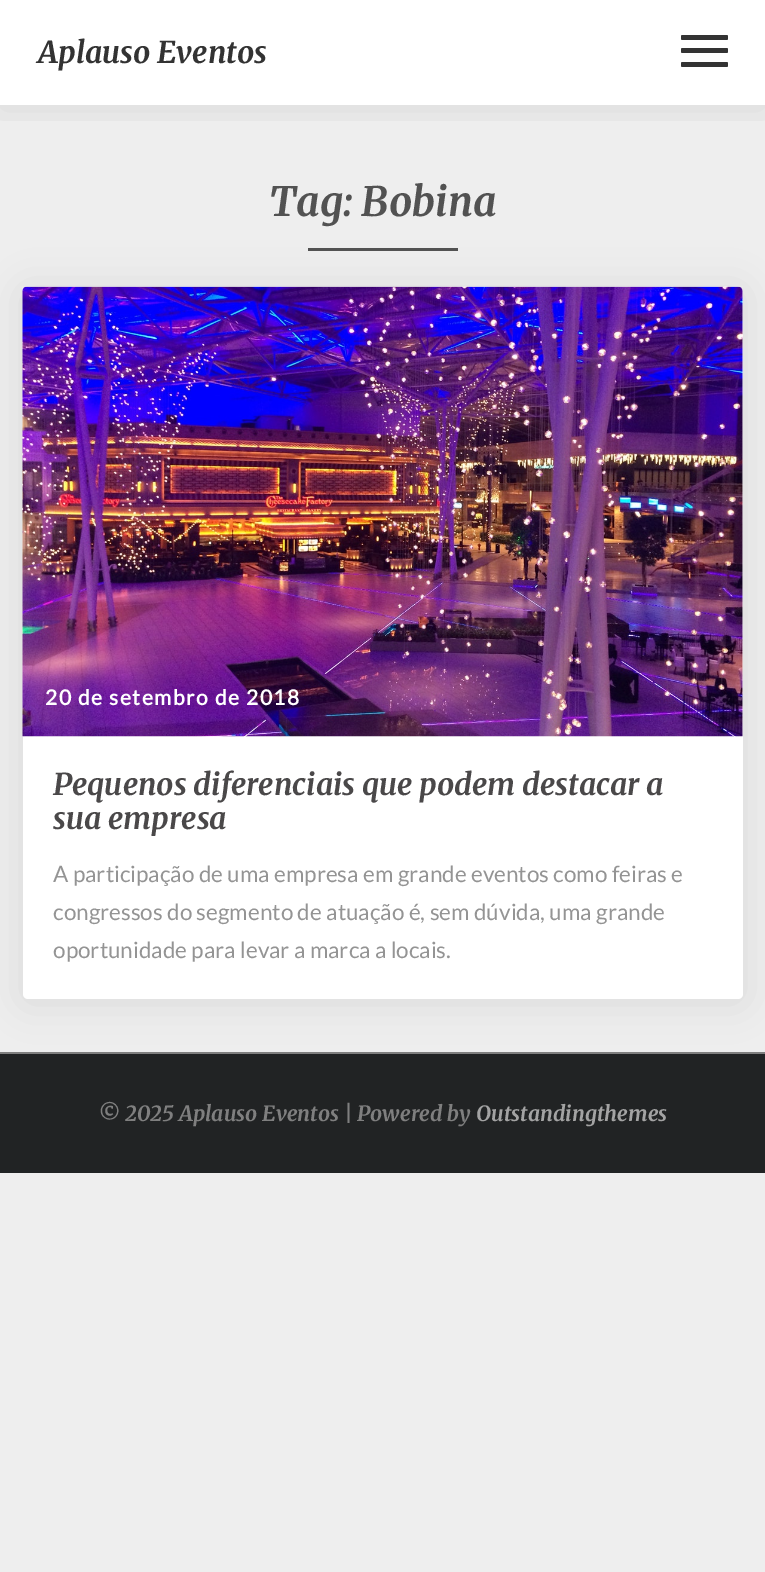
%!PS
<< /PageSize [765 1572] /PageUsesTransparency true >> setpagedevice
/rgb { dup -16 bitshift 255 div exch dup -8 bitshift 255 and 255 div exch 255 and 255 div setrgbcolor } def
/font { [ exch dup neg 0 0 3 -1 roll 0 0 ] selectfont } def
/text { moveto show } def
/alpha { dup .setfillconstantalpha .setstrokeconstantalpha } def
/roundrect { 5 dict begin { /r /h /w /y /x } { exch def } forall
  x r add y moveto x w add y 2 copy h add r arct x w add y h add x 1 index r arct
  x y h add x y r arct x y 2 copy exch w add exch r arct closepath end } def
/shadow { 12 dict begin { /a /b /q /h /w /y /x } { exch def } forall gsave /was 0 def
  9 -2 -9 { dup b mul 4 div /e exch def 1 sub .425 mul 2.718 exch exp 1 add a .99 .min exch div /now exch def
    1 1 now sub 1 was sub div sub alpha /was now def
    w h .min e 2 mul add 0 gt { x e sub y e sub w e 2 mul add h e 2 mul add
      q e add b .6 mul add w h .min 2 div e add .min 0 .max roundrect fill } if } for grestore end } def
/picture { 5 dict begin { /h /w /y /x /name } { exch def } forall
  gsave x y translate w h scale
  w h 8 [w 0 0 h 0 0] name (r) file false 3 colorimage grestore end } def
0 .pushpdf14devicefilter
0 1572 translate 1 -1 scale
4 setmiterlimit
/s1 { /Merriweather-LightItalic 30 font 16#333333 rgb } def
/s2 { /Merriweather-LightItalic 40.5 font 16#525252 rgb } def
/s3 { /Merriweather-LightItalic 30 font 16#4A4849 rgb } def
/s4 { /Lato-Regular 22.5 font 16#949494 rgb } def
/s5 { /Merriweather-LightItalic 21 font 16#7F7F7F rgb } def
/s6 { /Merriweather-LightItalic 21 font 16#A3A3A3 rgb } def
16#EEEEEE rgb
0 0 765 1572 rectfill
16#FFFFFF rgb
0 0 765 105 rectfill
gsave
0 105 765 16 rectclip
16#000000 rgb
0 3 765 105 0 19 0.08 shadow
grestore
s1
(Aplauso Eventos) 38 63 text
681 35 47 5 1.5 roundrect fill
681 48 47 5 1.5 roundrect fill
681 62 47 5 1.5 roundrect fill
s2
(Tag: Bobina) 269 216 text
308 248 150 3 rectfill
16#212324 rgb
0 1054 765 119 rectfill
16#7F7F7F rgb
0 1052 765 2 rectfill
16#000000 rgb
23 290 720 712 5 19 0.08 shadow
16#FFFFFF rgb
23 287 720 712 5 roundrect fill
(pic1.raw) 22 286 721 451 picture
/Lato-Bold 21 font
45 705 moveto 1.5 0 (20 de setembro de 2018) ashow
s3
(Pequenos diferenciais que podem destacar a) 53 795 text
gsave
53 767 660 69 rectclip
(sua empresa) 53 829 text
grestore
s4
(A participação de uma empresa em grande eventos como feiras e) 53 882 text
(congressos do segmento de atuação é, sem dúvida, uma grande) 53 920 text
(oportunidade para levar a marca a locais.) 53 958 text
s5
(© 2025 Aplauso Eventos | Powered by) 98 1121 text
s6
(Outstandingthemes) 476 1121 text
.poppdf14devicefilter showpage
